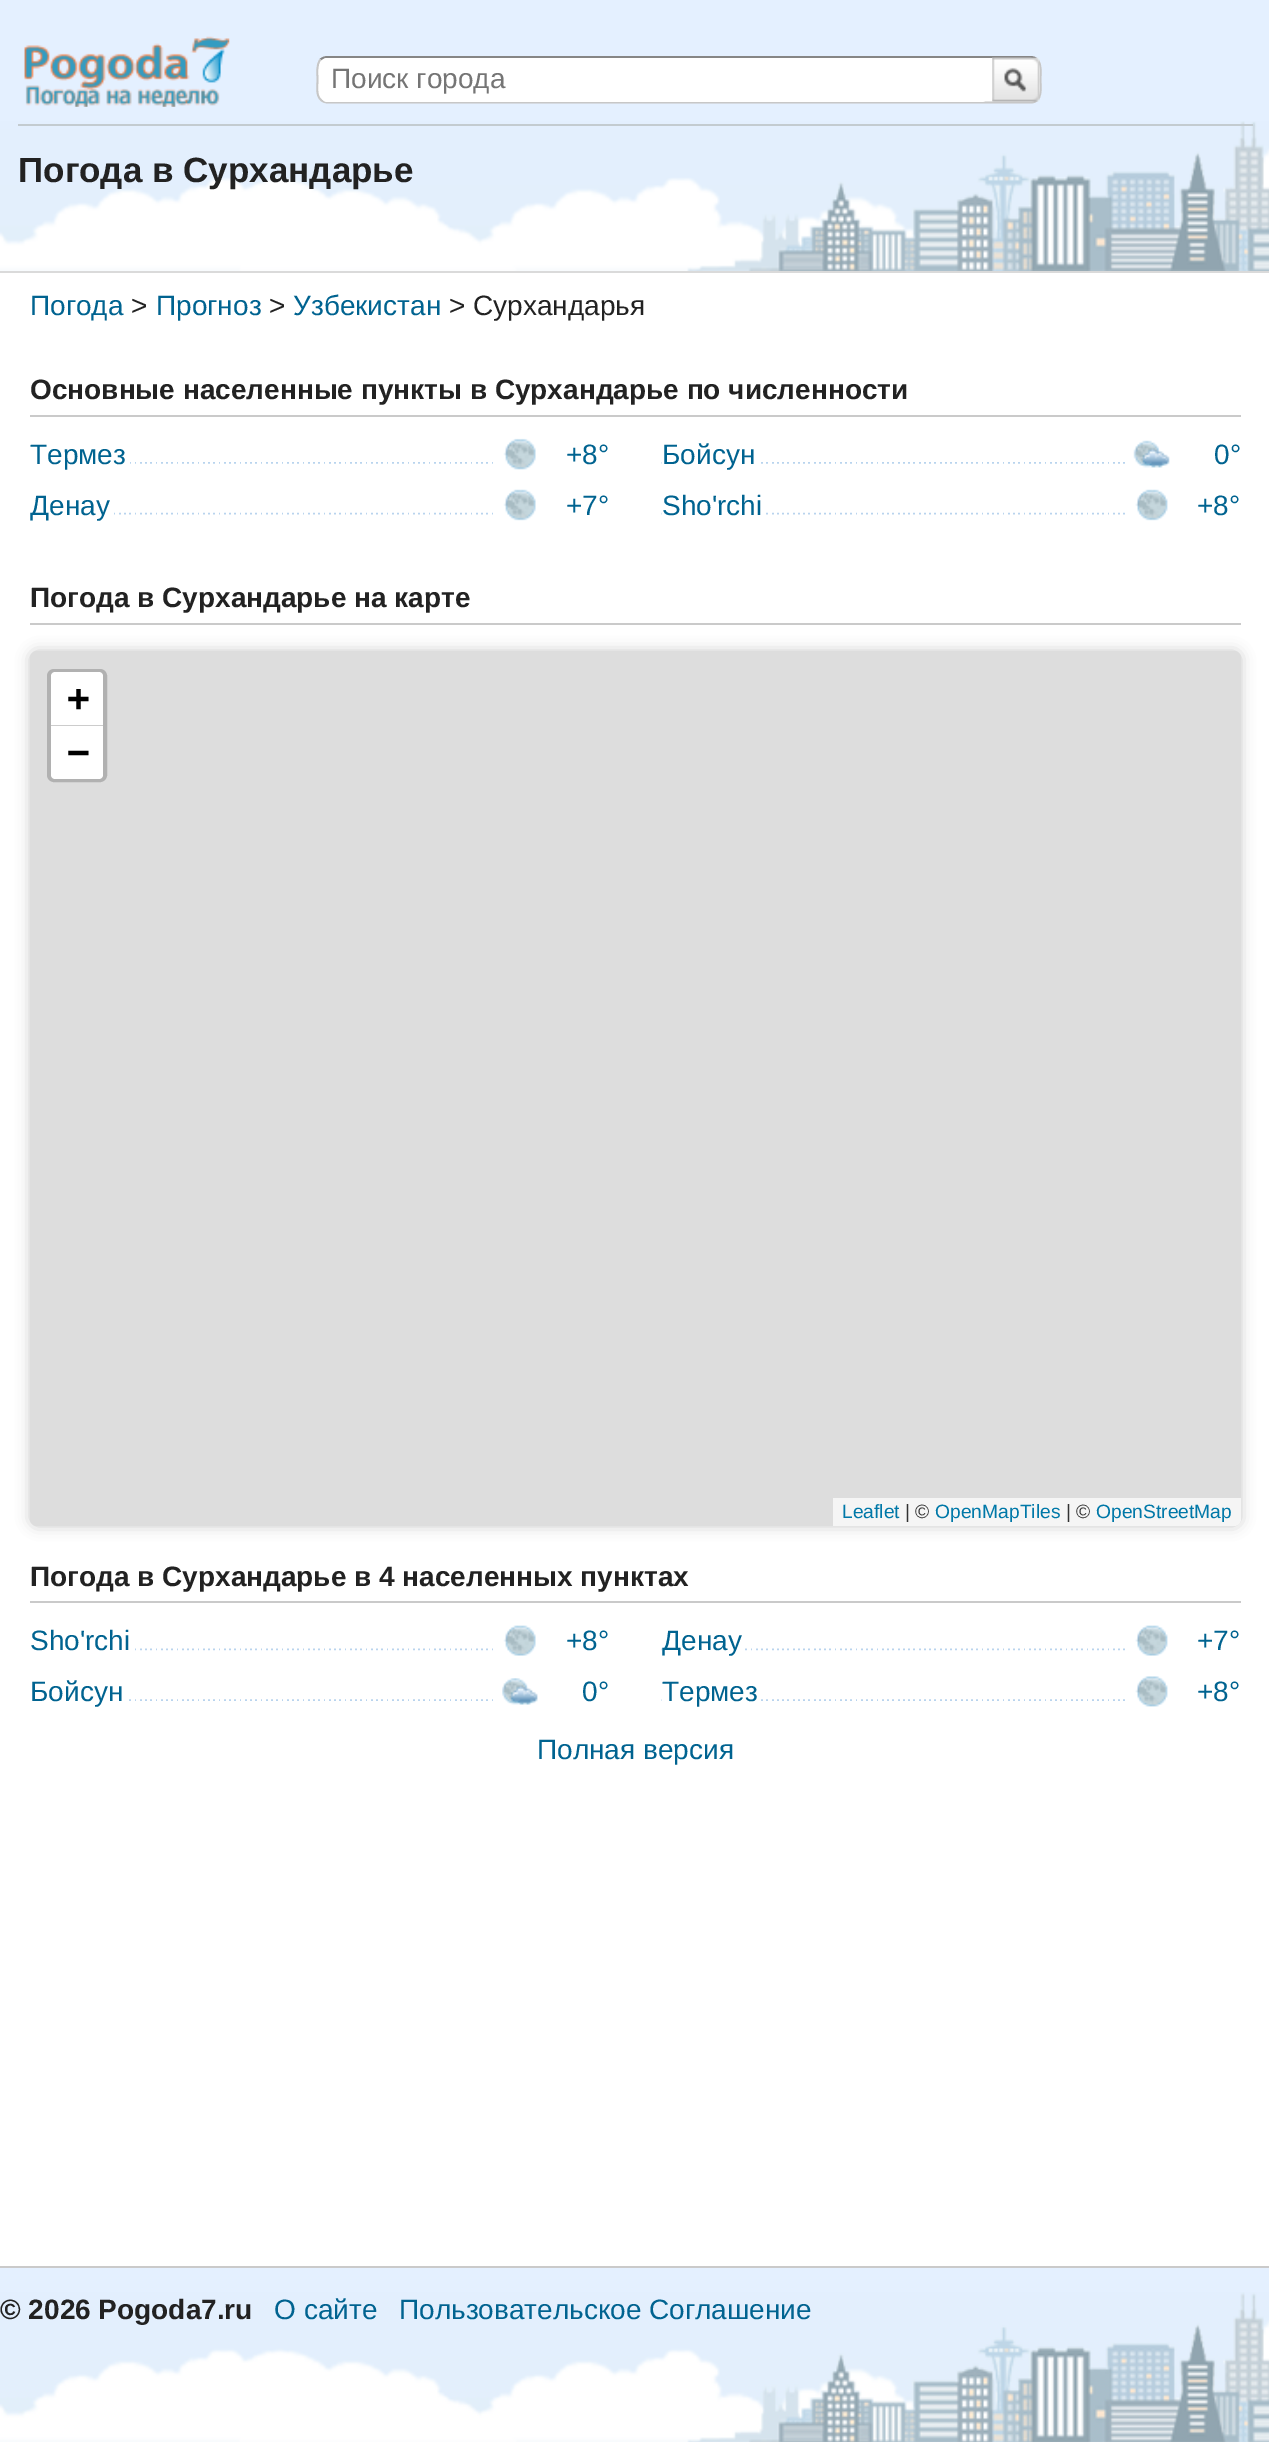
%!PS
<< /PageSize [1269 2442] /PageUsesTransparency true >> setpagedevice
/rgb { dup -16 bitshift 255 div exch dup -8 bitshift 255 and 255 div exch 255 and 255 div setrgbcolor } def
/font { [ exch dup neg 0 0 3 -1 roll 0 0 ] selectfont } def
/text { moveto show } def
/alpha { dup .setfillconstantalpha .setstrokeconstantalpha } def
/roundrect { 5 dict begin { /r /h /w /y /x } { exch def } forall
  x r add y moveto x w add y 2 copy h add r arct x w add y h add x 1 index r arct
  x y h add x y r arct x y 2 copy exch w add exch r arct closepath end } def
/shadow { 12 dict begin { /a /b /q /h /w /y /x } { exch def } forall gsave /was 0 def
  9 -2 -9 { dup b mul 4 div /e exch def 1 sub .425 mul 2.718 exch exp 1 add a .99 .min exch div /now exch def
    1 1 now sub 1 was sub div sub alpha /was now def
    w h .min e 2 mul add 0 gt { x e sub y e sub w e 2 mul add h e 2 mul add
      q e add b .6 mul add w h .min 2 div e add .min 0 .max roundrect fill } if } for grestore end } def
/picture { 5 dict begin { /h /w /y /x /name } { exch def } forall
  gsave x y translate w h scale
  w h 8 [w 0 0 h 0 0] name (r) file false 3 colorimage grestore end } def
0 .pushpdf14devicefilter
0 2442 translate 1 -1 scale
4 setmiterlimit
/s1 { /LiberationSans-Regular 28 font 16#757575 rgb } def
/s2 { /LiberationSans-Bold 35 font 16#222222 rgb } def
/s3 { /LiberationSans-Regular 28 font 16#006390 rgb } def
/s4 { /LiberationSans-Regular 28 font 16#222222 rgb } def
/s5 { /LiberationSans-Bold 28 font 16#222222 rgb } def
/s6 { /DejaVuSansMono-Bold 38 font 16#000000 rgb } def
/s7 { /LiberationSans-Regular 19.25 font 16#0078A8 rgb } def
/s8 { /LiberationSans-Regular 19.25 font 16#333333 rgb } def
16#FFFFFF rgb
0 0 1269 2442 rectfill
16#E4F0FF rgb
0 0 1269 121 rectfill
(pic1.raw) 0 121 1269 150 picture
16#DADADA rgb
0 271 1269 2 rectfill
(pic2.raw) 24 36 206 71 picture
16#FFFFFF rgb
317 56 724 47 11 roundrect fill
16#868686 rgb
1.8 setlinewidth
320.5 59.5 moveto 322 58 324.5 57 327 57 curveto 1031 57 lineto 1033.5 57 1036 58 1037.5 59.5 curveto stroke
16#C7C7C7 rgb
1037.5 59.5 moveto 1042 64.5 1040.5 74 1040.5 79.5 curveto 1040.5 87.5 1043 102.5 1031 102.5 curveto 327 102.5 lineto 324.5 102 lineto 315 99 317.5 87 317.5 79.5 curveto 317.5 74 316 64.5 320.5 59.5 curveto stroke
16#FFFFFF rgb
322 58 665 44 5 roundrect fill
s1
(Поиск города) 331 88 text
(pic3.raw) 992 57 48 45 picture
16#C3CBD0 rgb
18 124 1235 2 rectfill
s2
(Погода в Сурхандарье) 18 182 text
s3
(Погода) 30 315 text
s4
(>) 131 315 text
s3
(Прогноз) 156 315 text
s4
(>) 269 315 text
s3
(Узбекистан) 293 315 text
s4
(> Сурхандарья) 449 315 text
16#CACACA rgb
30 415 1211 2 rectfill
s5
(Основные населенные пункты в Сурхандарье по численности) 30 399 text
(pic4.raw) 130 462 363 2 picture
s3
(Термез) 30 464 text
(pic5.raw) 503 438 33 32 picture
(+8°) 566 464 text
(pic6.raw) 661 462 464 2 picture
16#FFFFFF rgb
662 462 96 2 rectfill
s3
(Бойсун) 662 464 text
(pic7.raw) 1133 440 37 28 picture
(0°) 1214 464 text
(pic8.raw) 114 512 379 3 picture
(Денау) 30 515 text
(pic9.raw) 503 489 33 32 picture
(+7°) 566 515 text
(pic10.raw) 661 512 464 3 picture
16#FFFFFF rgb
662 512 101 3 rectfill
s3
(Sho'rchi) 662 515 text
(pic11.raw) 1135 489 33 32 picture
(+8°) 1197 515 text
16#CACACA rgb
30 623 1211 2 rectfill
s5
(Погода в Сурхандарье на карте) 30 607 text
16#C7C7C7 rgb
30 651 1211 875 7 7 1 shadow
16#DDDDDD rgb
30 651 1211 875 7 roundrect fill
16#B1B1B1 rgb
4 setlinewidth
49 671 56 109 5 roundrect stroke
16#FFFFFF rgb
55 672 moveto 99 672 lineto 101 672 103 674 103 676 curveto 103 726 lineto 51 726 lineto 51 676 lineto 51 674 53 672 55 672 curveto closepath fill
16#CCCCCC rgb
51 725 52 1 rectfill
s6
(+) 67 711 text
16#FFFFFF rgb
51 726 moveto 103 726 lineto 103 775 lineto 103 777 101 779 99 779 curveto 55 779 lineto 53 779 51 777 51 775 curveto closepath fill
s6
(−) 67 765 text
0.7 alpha
16#FFFFFF rgb
833 1498 moveto 1241 1498 lineto 1241 1519 lineto 1241 1523 1238 1526 1234 1526 curveto 833 1526 lineto closepath fill
1 alpha
s7
(Leaflet) 842 1518 text
s8
(| ©) 905 1518 text
s7
(OpenMapTiles) 935 1518 text
s8
(| ©) 1066 1518 text
s7
(OpenStreetMap) 1096 1518 text
16#CACACA rgb
30 1601 1211 2 rectfill
s5
(Погода в Сурхандарье в 4 населенных пунктах) 30 1586 text
(pic12.raw) 135 1648 358 3 picture
s3
(Sho'rchi) 30 1650 text
(pic13.raw) 503 1625 33 31 picture
(+8°) 566 1650 text
(pic14.raw) 661 1648 464 3 picture
16#FFFFFF rgb
662 1648 80 3 rectfill
gsave
662 1615 82 51 rectclip
s3
(Денау) 662 1650 text
grestore
(pic15.raw) 1135 1625 33 31 picture
s3
(+7°) 1197 1650 text
(pic16.raw) 129 1699 364 2 picture
(Бойсун) 30 1701 text
(pic17.raw) 502 1678 36 27 picture
(0°) 582 1701 text
(pic18.raw) 661 1699 464 2 picture
16#FFFFFF rgb
662 1699 96 2 rectfill
s3
(Термез) 662 1701 text
(pic19.raw) 1135 1676 33 31 picture
(+8°) 1197 1701 text
(Полная версия) 537 1759 text
16#E4F0FF rgb
0 2268 1269 24 rectfill
(pic20.raw) 0 2292 1269 150 picture
16#CACACA rgb
0 2266 1269 2 rectfill
s5
(© 2026 Pogoda7.ru) 0 2319 text
s3
(О сайте) 274 2319 text
(Пользовательское Соглашение) 399 2319 text
.poppdf14devicefilter showpage
